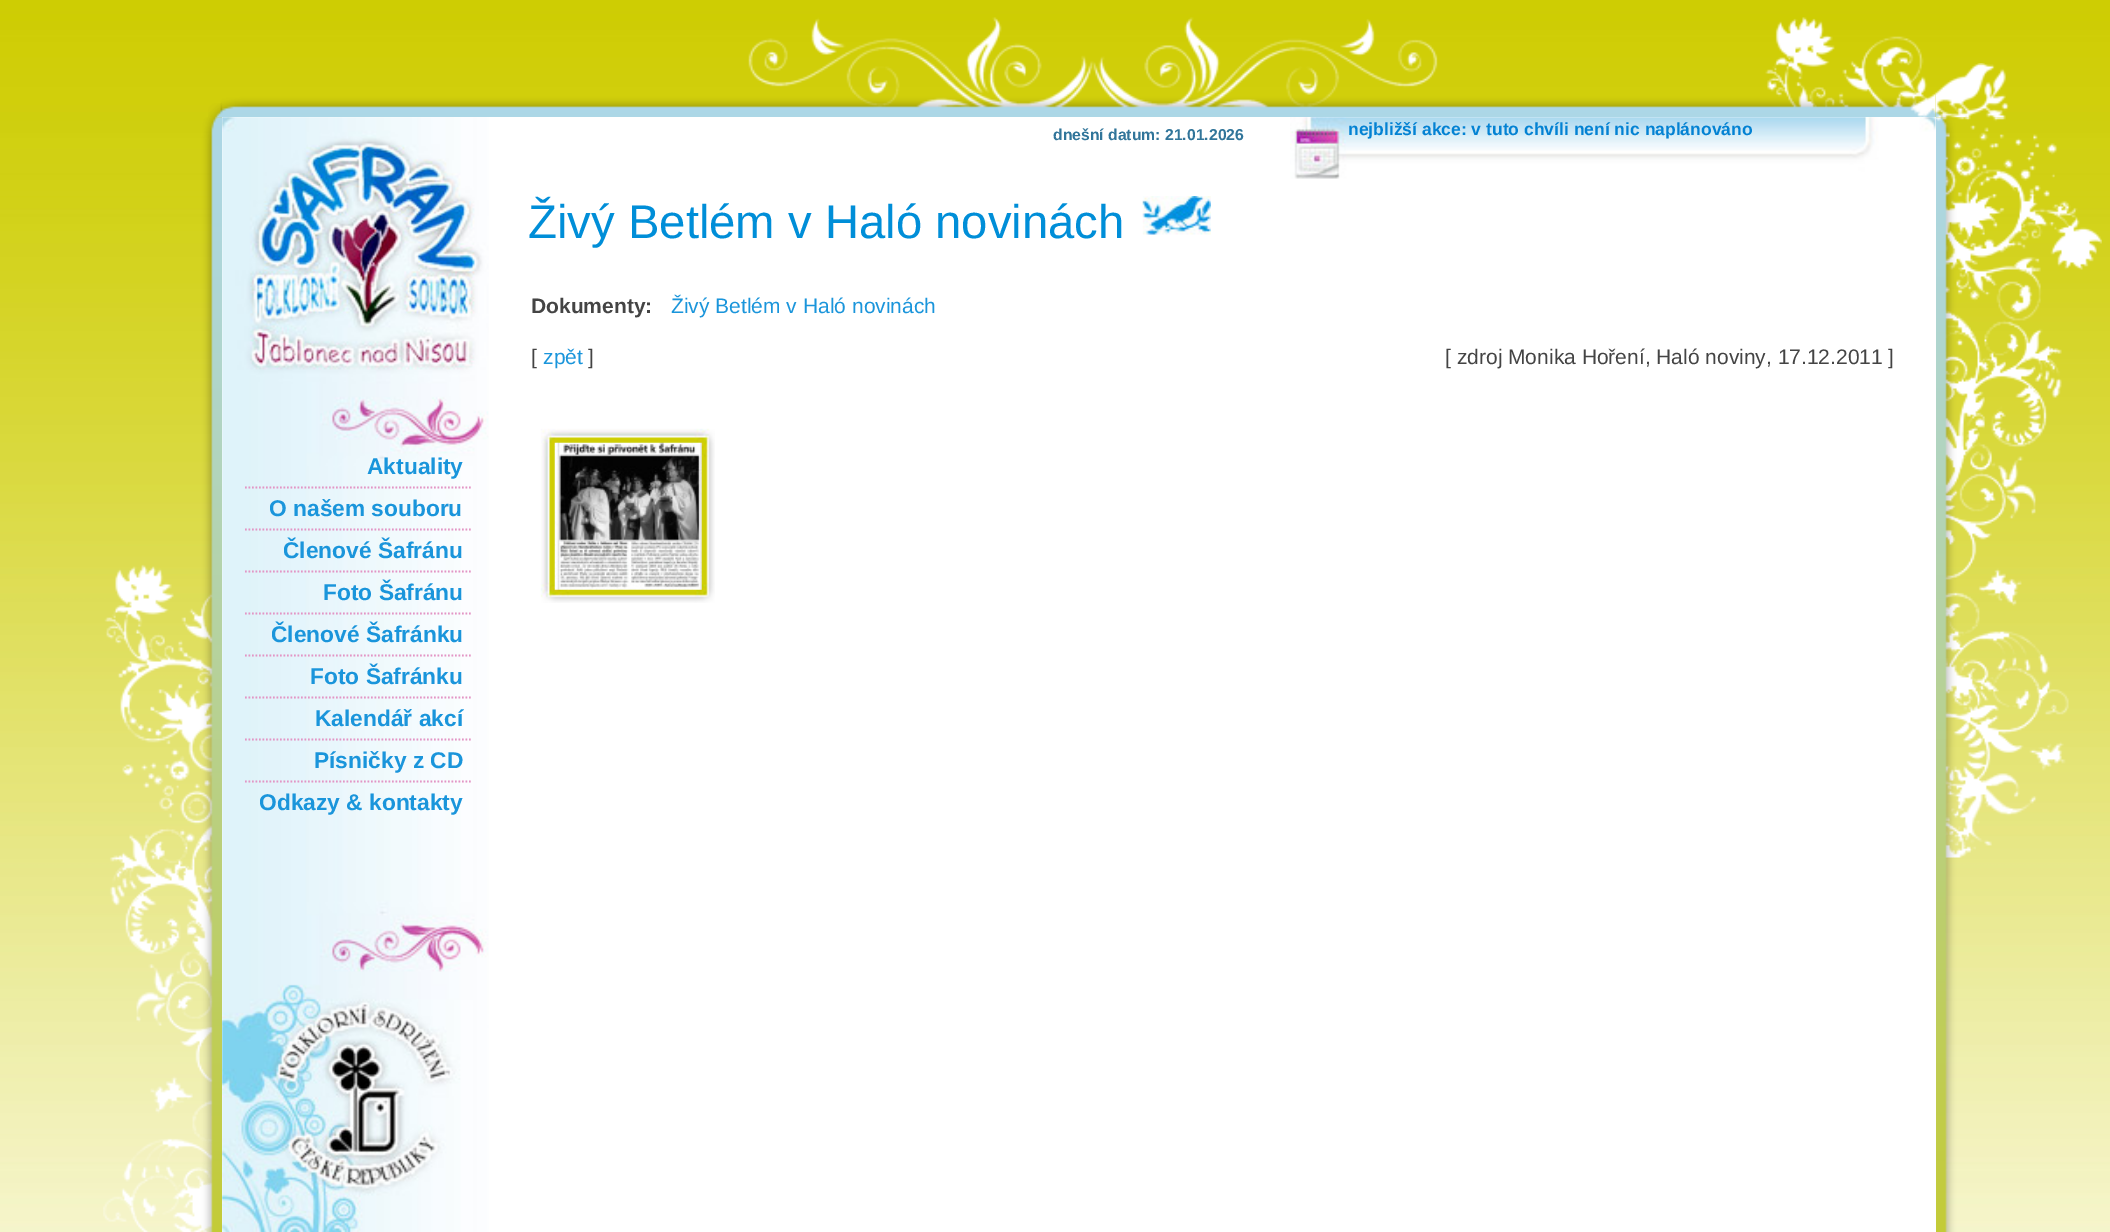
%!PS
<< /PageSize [2110 1232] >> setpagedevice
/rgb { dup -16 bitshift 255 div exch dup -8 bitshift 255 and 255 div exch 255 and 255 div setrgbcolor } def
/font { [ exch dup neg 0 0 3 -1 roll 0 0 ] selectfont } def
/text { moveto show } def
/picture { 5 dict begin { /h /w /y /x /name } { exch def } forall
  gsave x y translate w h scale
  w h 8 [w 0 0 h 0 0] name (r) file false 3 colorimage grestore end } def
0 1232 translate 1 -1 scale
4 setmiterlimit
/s1 { /LiberationSans-Bold 15.75 font 16#31759A rgb } def
/s2 { /LiberationSans-Bold 17.5 font 16#0382D3 rgb } def
/s3 { /LiberationSans-Regular 47.25 font 16#008ED8 rgb } def
/s4 { /LiberationSans-Bold 21 font 16#444444 rgb } def
/s5 { /LiberationSans-Regular 21 font 16#1A95DB rgb } def
/s6 { /LiberationSans-Regular 21 font 16#444444 rgb } def
/s7 { /LiberationSans-Bold 22.75 font 16#1A95DB rgb } def
16#FFFFFF rgb
0 0 2110 1232 rectfill
(pic1.raw) 0 0 2110 1232 picture
(pic5.raw) 103 117 119 1115 picture
(pic2.raw) 220 17 1716 101 picture
(pic3.raw) 208 103 15 15 picture
(pic6.raw) 1936 117 166 1115 picture
(pic4.raw) 1935 63 74 55 picture
222 117 1714 1115 rectfill
s1
(dnešní datum: 21.01.2026) 1053 140 text
(pic7.raw) 1290 117 646 62 picture
s2
(nejbližší akce: v tuto chvíli není nic naplánováno) 1348 135 text
(pic8.raw) 1142 196 69 39 picture
s3
(Živý Betlém v Haló novinách) 528 238 text
s4
(Dokumenty:) 531 313 text
s5
(Živý Betlém v Haló novinách) 671 313 text
s6
([) 531 364 text
s5
(zpět) 543 364 text
s6
(]) 588 364 text
([ zdroj Monika Hoření, Haló noviny, 17.12.2011 ]) 1445 364 text
(pic9.raw) 540 428 175 175 picture
(pic10.raw) 554 442 148 148 picture
(pic11.raw) 222 117 267 1115 picture
16#E395C5 rgb
1.8 setlinewidth
[1.75 1.75] 0 setdash
245 487.5 moveto 472.5 487.5 lineto stroke
s7
(Aktuality) 367 474 text
16#E395C5 rgb
245 529.5 moveto 472.5 529.5 lineto stroke
s7
(O našem souboru) 269 516 text
16#E395C5 rgb
245 571.5 moveto 472.5 571.5 lineto stroke
s7
(Členové Šafránu) 283 558 text
16#E395C5 rgb
245 613.5 moveto 472.5 613.5 lineto stroke
s7
(Foto Šafránu) 323 600 text
16#E395C5 rgb
245 655.5 moveto 472.5 655.5 lineto stroke
s7
(Členové Šafránku) 271 642 text
16#E395C5 rgb
245 697.5 moveto 472.5 697.5 lineto stroke
s7
(Foto Šafránku) 310 684 text
16#E395C5 rgb
245 739.5 moveto 472.5 739.5 lineto stroke
s7
(Kalendář akcí) 315 726 text
16#E395C5 rgb
245 781.5 moveto 472.5 781.5 lineto stroke
s7
(Písničky z CD) 314 768 text
(Odkazy & kontakty) 259 810 text
showpage
